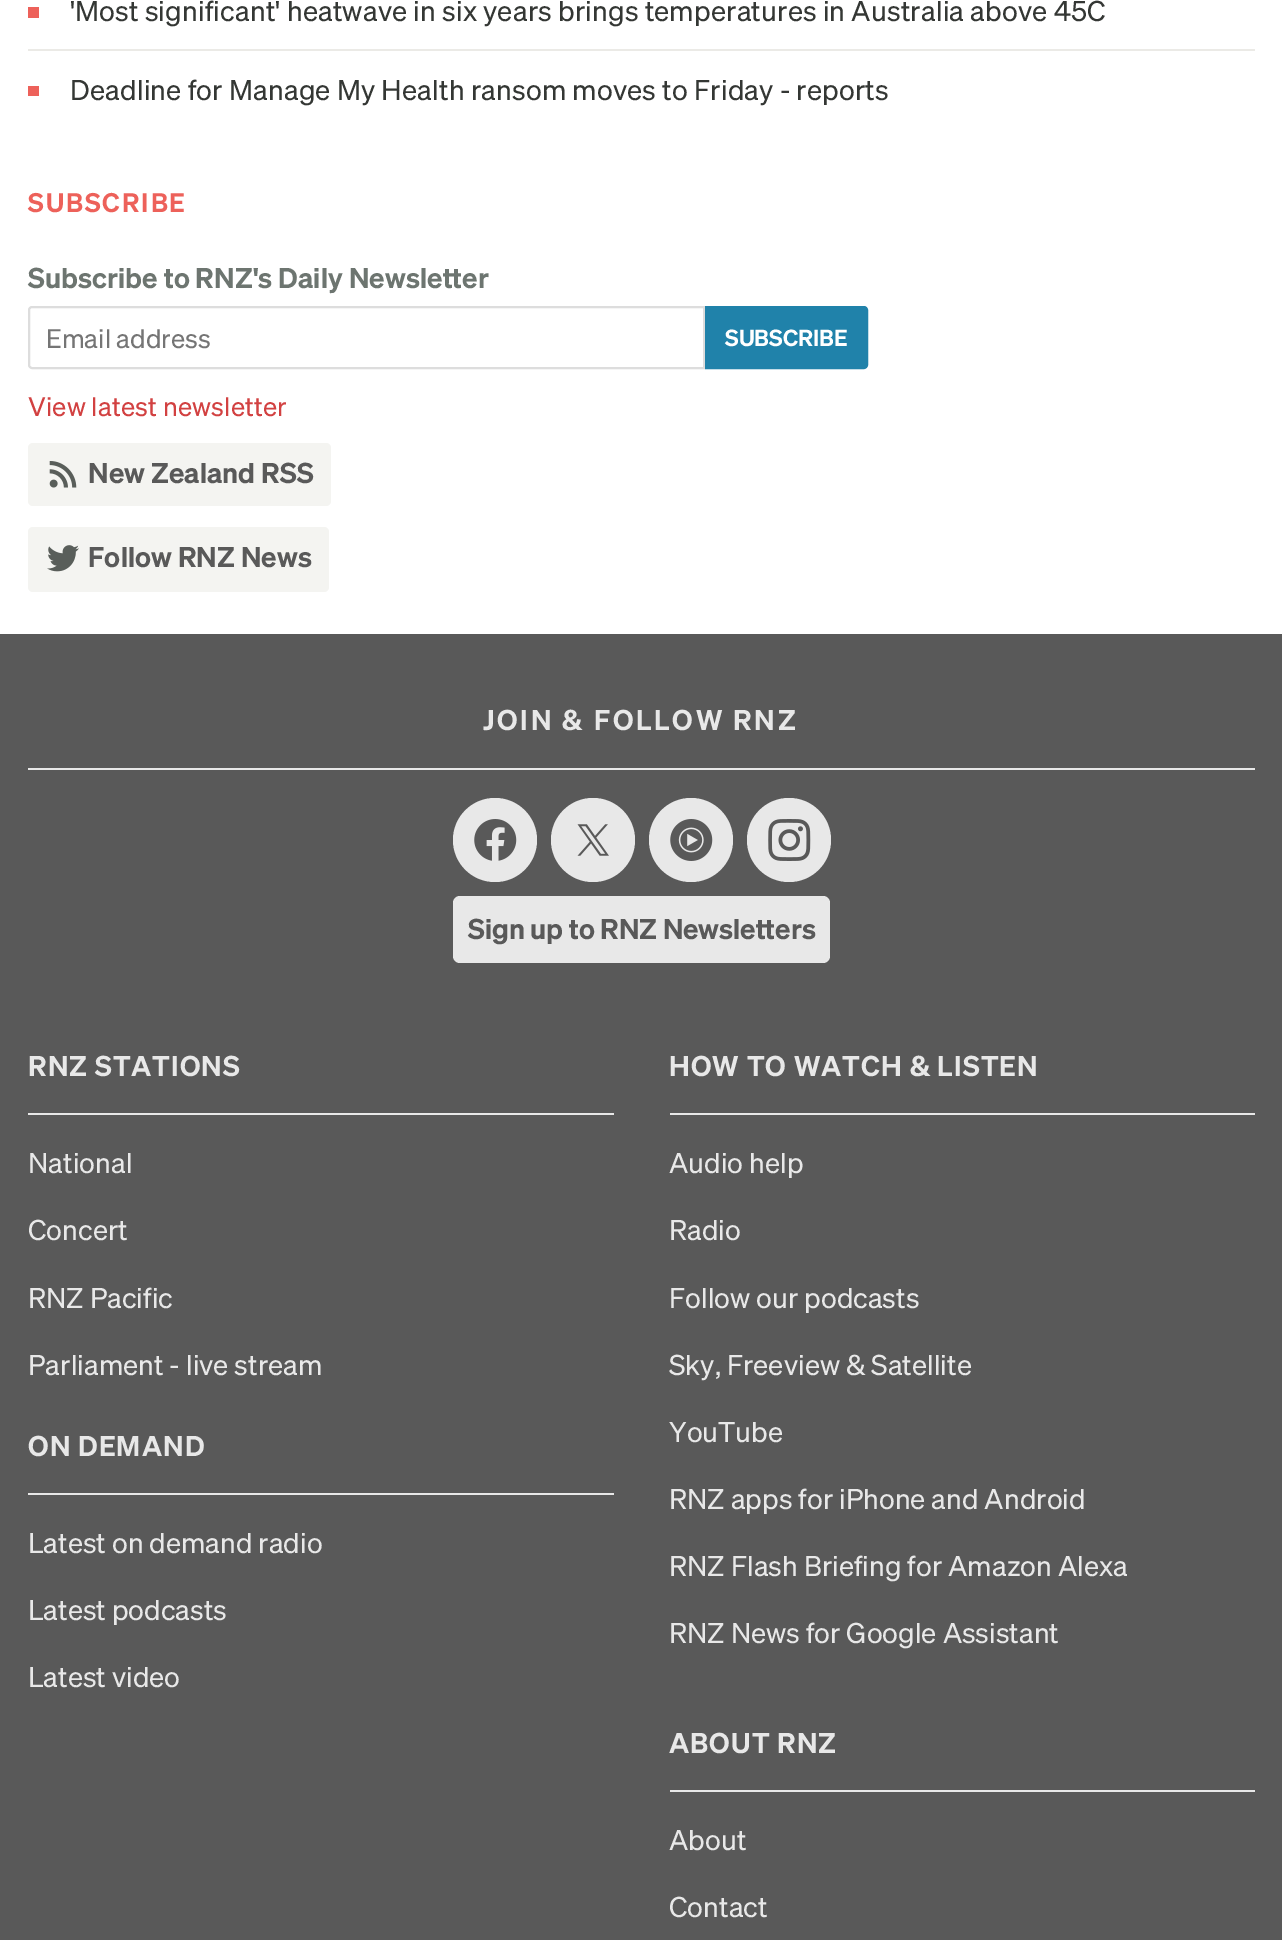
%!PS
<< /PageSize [1282 1940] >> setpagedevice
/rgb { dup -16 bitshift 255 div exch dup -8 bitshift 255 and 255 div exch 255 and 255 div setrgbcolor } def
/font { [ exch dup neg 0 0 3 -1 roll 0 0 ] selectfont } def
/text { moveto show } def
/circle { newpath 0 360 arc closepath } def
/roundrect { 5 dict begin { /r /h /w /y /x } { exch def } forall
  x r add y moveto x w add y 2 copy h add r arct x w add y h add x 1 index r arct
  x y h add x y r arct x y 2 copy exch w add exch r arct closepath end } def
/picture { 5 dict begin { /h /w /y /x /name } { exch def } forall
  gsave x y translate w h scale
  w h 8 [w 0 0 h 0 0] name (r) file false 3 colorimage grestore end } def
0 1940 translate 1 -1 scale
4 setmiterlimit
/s1 { /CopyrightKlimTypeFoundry-Regular 26.25 font 16#757575 rgb } def
/s2 { /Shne-SemiBold 22.75 font 16#FFFFFF rgb } def
/s3 { /Shne-SemiBold 28 font 16#595959 rgb } def
/s4 { /CopyrightKlimTypeFoundry-Regular 28 font 16#E8E8E8 rgb } def
16#FFFFFF rgb
0 0 1282 1940 rectfill
16#ED615A rgb
28 7 11 11 rectfill
/CopyrightKlimTypeFoundry-Regular 28 font
16#343734 rgb
70 21 moveto 0.15 0 ('Most significant' heatwave in six years brings temperatures in Australia above 45C) ashow
16#EBEAE6 rgb
28 49 1227 2 rectfill
16#ED615A rgb
28 86 11 10 rectfill
16#343734 rgb
70 100 moveto 0.15 0 (Deadline for Manage My Health ransom moves to Friday - reports) ashow
/Shne-SemiBold 26.25 font
16#ED615A rgb
28 212 moveto 2 0 (SUBSCRIBE) ashow
/Shne-SemiBold 28 font
16#6D7570 rgb
28 288 moveto 0.15 0 (Subscribe to RNZ's Daily Newsletter) ashow
16#DDDDDD rgb
2 setlinewidth
32 307 moveto 704 307 lineto 704 368 lineto 32 368 lineto 30.5 368 29 366.5 29 365 curveto 29 310 lineto 29 308.5 30.5 307 32 307 curveto closepath stroke
s1
(Email address) 46 348 text
16#2082AA rgb
706 307 moveto 864 307 lineto 865.5 307 867 308.5 867 310 curveto 867 365 lineto 867 366.5 865.5 368 864 368 curveto 706 368 lineto closepath gsave fill grestore
stroke
s2
(SUBSCRIBE) 725 346 text
/CopyrightKlimTypeFoundry-Regular 26.25 font
16#D24141 rgb
28 416 moveto 0.15 0 (View latest newsletter) ashow
16#F4F4F1 rgb
28 443 303 63 5 roundrect fill
(pic1.raw) 49 461 28 27 picture
/Shne-SemiBold 28 font
16#595959 rgb
88 483 moveto 0.15 0 (New Zealand RSS) ashow
16#F4F4F1 rgb
28 527 301 65 5 roundrect fill
(pic2.raw) 47 545 32 27 picture
16#595959 rgb
88 567 moveto 0.15 0 (Follow RNZ News) ashow
0 634 1282 1306 rectfill
16#E8E8E8 rgb
28 768 1227 2 rectfill
483 730 moveto 2.75 0 (JOIN & FOLLOW RNZ) ashow
495 840 42 circle fill
(pic3.raw) 474 819 43 42 picture
593 840 42 circle fill
(pic4.raw) 577 824 32 32 picture
691 840 42 circle fill
(pic5.raw) 670 819 43 42 picture
789 840 42 circle fill
(pic6.raw) 768 819 43 42 picture
453 896 377 67 7 roundrect fill
s3
(Sign up to RNZ Newsletters) 468 939 text
16#E8E8E8 rgb
28 1113 586 2 rectfill
28 1076 moveto 1.1 0 (RNZ STATIONS) ashow
s4
(National) 28 1173 text
(Concert) 28 1240 text
(RNZ Pacific) 28 1308 text
(Parliament - live stream) 28 1375 text
28 1493 586 2 rectfill
/Shne-SemiBold 28 font
28 1456 moveto 1.1 0 (ON DEMAND) ashow
s4
(Latest on demand radio) 28 1553 text
(Latest podcasts) 28 1620 text
(Latest video) 28 1687 text
670 1113 585 2 rectfill
/Shne-SemiBold 28 font
669 1076 moveto 1.1 0 (HOW TO WATCH & LISTEN) ashow
s4
(Audio help) 669 1173 text
(Radio) 669 1240 text
(Follow our podcasts) 669 1308 text
(Sky, Freeview & Satellite) 669 1375 text
(YouTube) 669 1442 text
(RNZ apps for iPhone and Android) 669 1509 text
(RNZ Flash Briefing for Amazon Alexa) 669 1576 text
(RNZ News for Google Assistant) 669 1643 text
670 1790 585 2 rectfill
/Shne-SemiBold 28 font
669 1753 moveto 1.1 0 (ABOUT RNZ) ashow
s4
(About) 669 1850 text
(Contact) 669 1917 text
showpage
